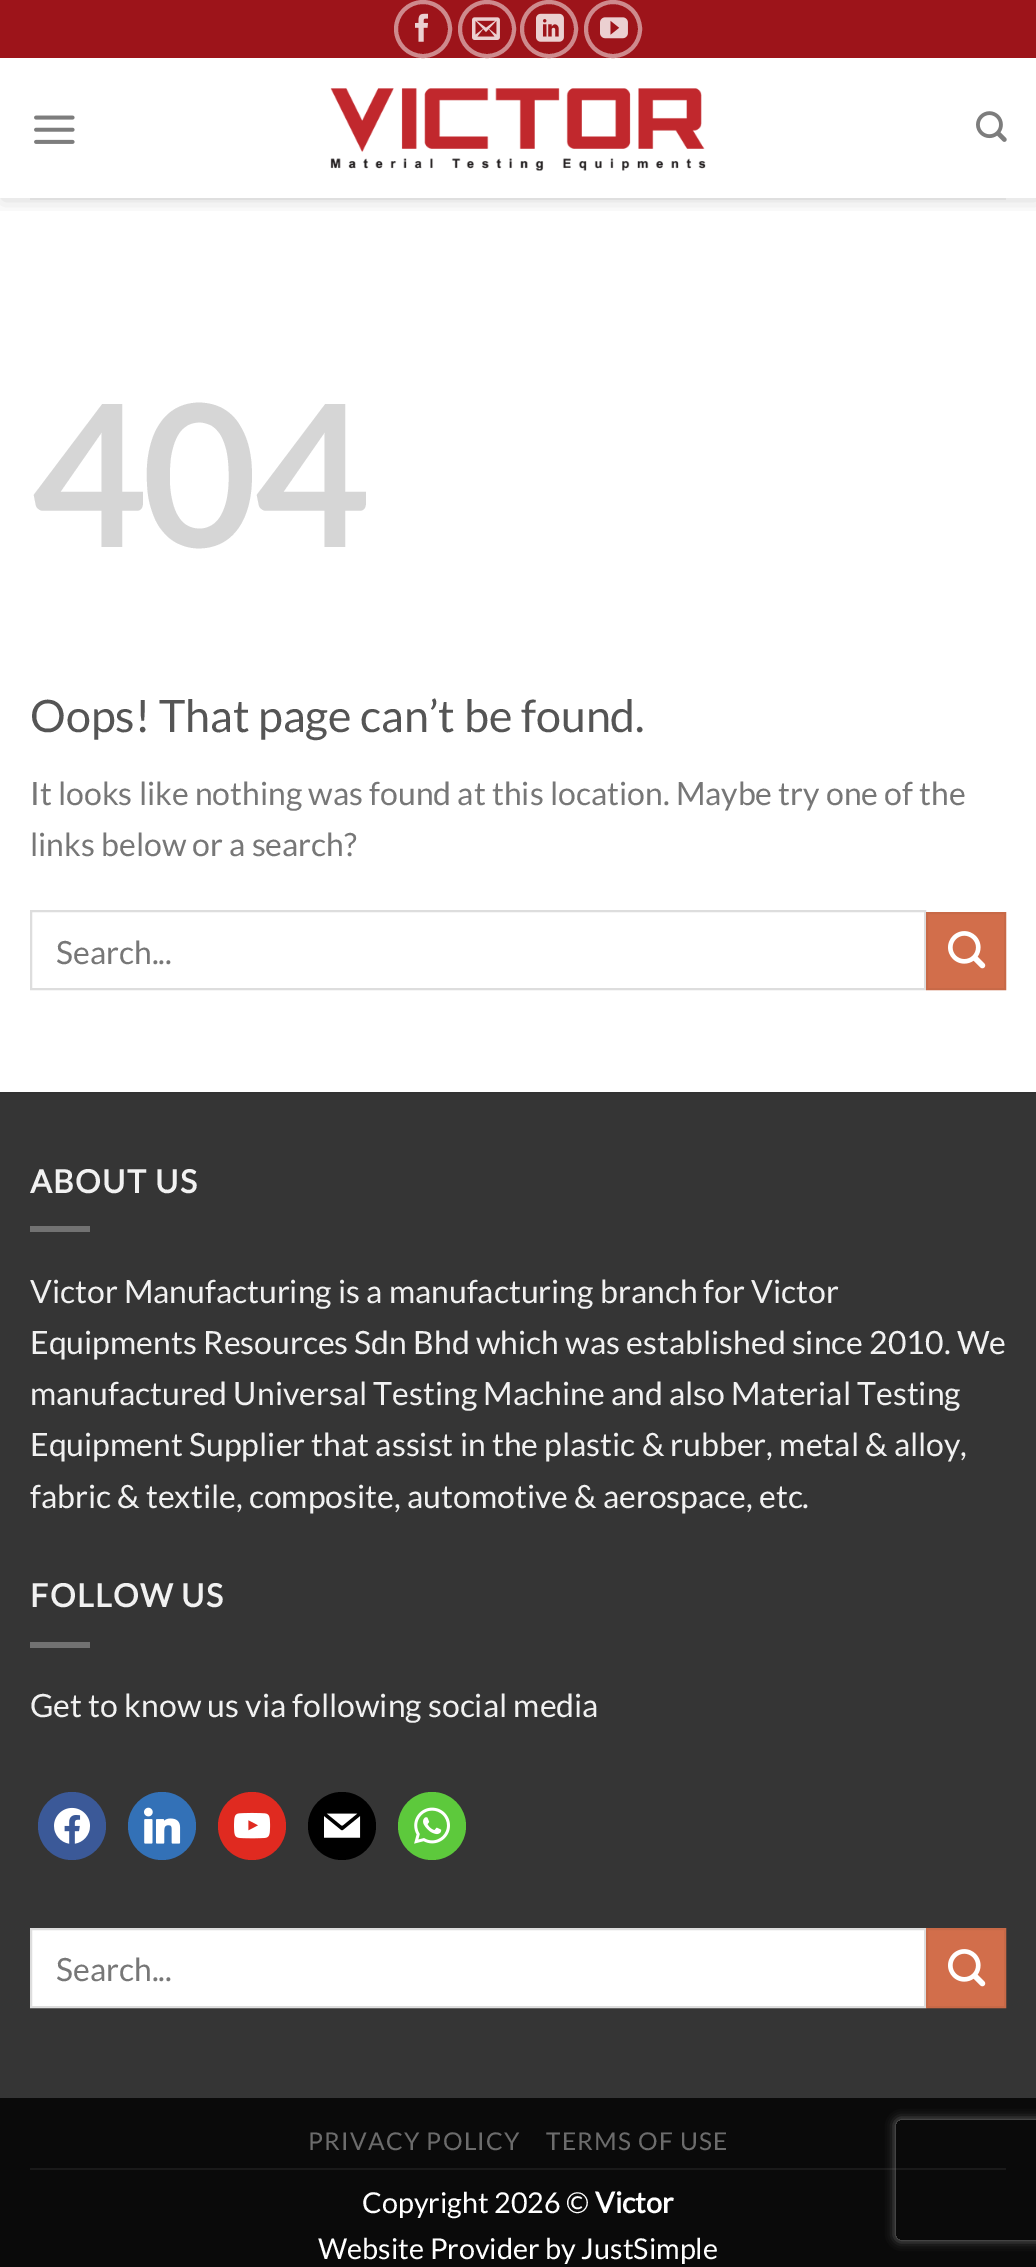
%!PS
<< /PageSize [1036 2267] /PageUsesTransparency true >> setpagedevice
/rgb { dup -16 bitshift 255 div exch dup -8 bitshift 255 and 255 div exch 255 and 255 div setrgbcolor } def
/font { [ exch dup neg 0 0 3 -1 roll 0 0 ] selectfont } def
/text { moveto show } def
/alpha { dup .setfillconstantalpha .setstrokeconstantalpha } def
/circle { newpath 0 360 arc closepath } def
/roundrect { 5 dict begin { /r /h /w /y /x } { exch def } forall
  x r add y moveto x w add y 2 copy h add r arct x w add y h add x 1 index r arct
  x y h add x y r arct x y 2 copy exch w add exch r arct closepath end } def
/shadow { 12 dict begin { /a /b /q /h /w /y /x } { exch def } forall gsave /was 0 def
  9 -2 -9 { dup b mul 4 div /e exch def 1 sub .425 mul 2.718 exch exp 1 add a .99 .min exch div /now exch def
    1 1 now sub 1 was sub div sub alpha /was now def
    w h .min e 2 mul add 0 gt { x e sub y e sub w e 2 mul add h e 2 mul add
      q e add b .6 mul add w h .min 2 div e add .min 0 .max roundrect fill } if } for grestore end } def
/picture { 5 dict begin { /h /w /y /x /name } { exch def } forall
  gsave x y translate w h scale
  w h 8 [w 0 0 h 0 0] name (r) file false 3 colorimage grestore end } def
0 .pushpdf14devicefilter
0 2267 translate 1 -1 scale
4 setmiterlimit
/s1 { /Lato-Bold 192 font 16#D6D6D6 rgb } def
/s2 { /Lato-Regular 44.75 font 16#555555 rgb } def
/s3 { /Lato-Regular 32 font 16#777777 rgb } def
/s4 { /Lato-Regular 32 font 16#F1F1F1 rgb } def
/s5 { /Lato-Regular 28.75 font 16#FFFFFF rgb } def
/s6 { /Lato-Bold 28.75 font 16#FFFFFF rgb } def
16#FFFFFF rgb
0 0 1036 2267 rectfill
gsave
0 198 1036 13 rectclip
16#000000 rgb
2 2 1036 198 0 10 0.15 shadow
grestore
16#9D141A rgb
0 0 1036 58 rectfill
16#CE8A8D rgb
4 setlinewidth
423 29 27 circle stroke
(pic1.raw) 415 13 13 29 picture
487 29 27 circle stroke
(pic2.raw) 472 17 28 23 picture
549 29 27 circle stroke
(pic3.raw) 536 13 28 29 picture
613 29 27 circle stroke
(pic4.raw) 600 17 28 22 picture
(pic5.raw) 34 115 41 29 picture
(pic6.raw) 330 88 376 83 picture
(pic7.raw) 976 111 31 31 picture
16#DFDFDF rgb
30 198 976 2 rectfill
s1
(404) 30 547 text
s2
(Oops! That page can’t be found.) 30 732 text
s3
(It looks like nothing was found at this location. Maybe try one of the) 30 805 text
(links below or a search?) 30 856 text
16#DDDDDD rgb
2 setlinewidth
31 911 894 78 rectstroke
s3
(Search...) 56 964 text
16#D26E4B rgb
927 913 moveto 1005 913 lineto 1005 989 lineto 927 989 lineto closepath gsave fill grestore
16#C86947 rgb
stroke
(pic8.raw) 948 931 38 38 picture
16#353535 rgb
0 1094 1036 1004 rectfill
16#323232 rgb
0 1092 1036 2 rectfill
/Lato-Bold 32 font
16#F1F1F1 rgb
30 1193 moveto 1.5 0 (ABOUT US) ashow
16#727272 rgb
30 1226 60 6 rectfill
s4
(Victor Manufacturing is a manufacturing branch for Victor) 30 1303 text
(Equipments Resources Sdn Bhd which was established since 2010. We) 30 1354 text
(manufactured Universal Testing Machine and also Material Testing) 30 1405 text
(Equipment Supplier that assist in the plastic & rubber, metal & alloy,) 30 1456 text
(fabric & textile, composite, automotive & aerospace, etc.) 30 1508 text
/Lato-Bold 32 font
30 1607 moveto 1.5 0 (FOLLOW US) ashow
16#727272 rgb
30 1642 60 6 rectfill
s4
(Get to know us via following social media) 30 1717 text
16#3B5998 rgb
72 1826 34 circle fill
(pic9.raw) 54 1807 36 37 picture
16#3371B7 rgb
162 1826 34 circle fill
(pic10.raw) 144 1807 37 37 picture
16#E02A20 rgb
252 1826 34 circle fill
(pic11.raw) 234 1812 37 27 picture
16#000000 rgb
342 1826 34 circle fill
(pic12.raw) 324 1813 37 25 picture
16#5DC93C rgb
432 1826 34 circle fill
(pic13.raw) 414 1807 36 37 picture
16#FFFFFF rgb
31 1929 moveto 925 1929 lineto 925 2007 lineto 31 2007 lineto closepath gsave fill grestore
16#DDDDDD rgb
stroke
s3
(Search...) 56 1981 text
16#D26E4B rgb
927 1929 moveto 1005 1929 lineto 1005 2007 lineto 927 2007 lineto closepath gsave fill grestore
16#C86947 rgb
stroke
(pic8.raw) 948 1949 38 38 picture
16#0A0A0A rgb
0 2098 1036 169 rectfill
16#1A1A1A rgb
30 2168 976 2 rectfill
/Lato-Regular 24.5 font
16#6C6C6C rgb
308 2150 moveto 1.25 0 (PRIVACY POLICY) ashow
546 2150 moveto 1.25 0 (TERMS OF USE) ashow
s5
(Copyright 2026 ©) 362 2213 text
s6
(Victor) 595 2213 text
s5
(Website Provider by JustSimple) 318 2259 text
gsave
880 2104 moveto 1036 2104 lineto 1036 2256 lineto 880 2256 lineto closepath 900 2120 moveto 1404 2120 lineto 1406 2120 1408 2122 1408 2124 curveto 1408 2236 lineto 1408 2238 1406 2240 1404 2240 curveto 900 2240 lineto 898 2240 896 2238 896 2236 curveto 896 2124 lineto 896 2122 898 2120 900 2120 curveto closepath eoclip newpath
16#808080 rgb
896 2120 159 120 4 5 1 shadow
grestore
.poppdf14devicefilter showpage
